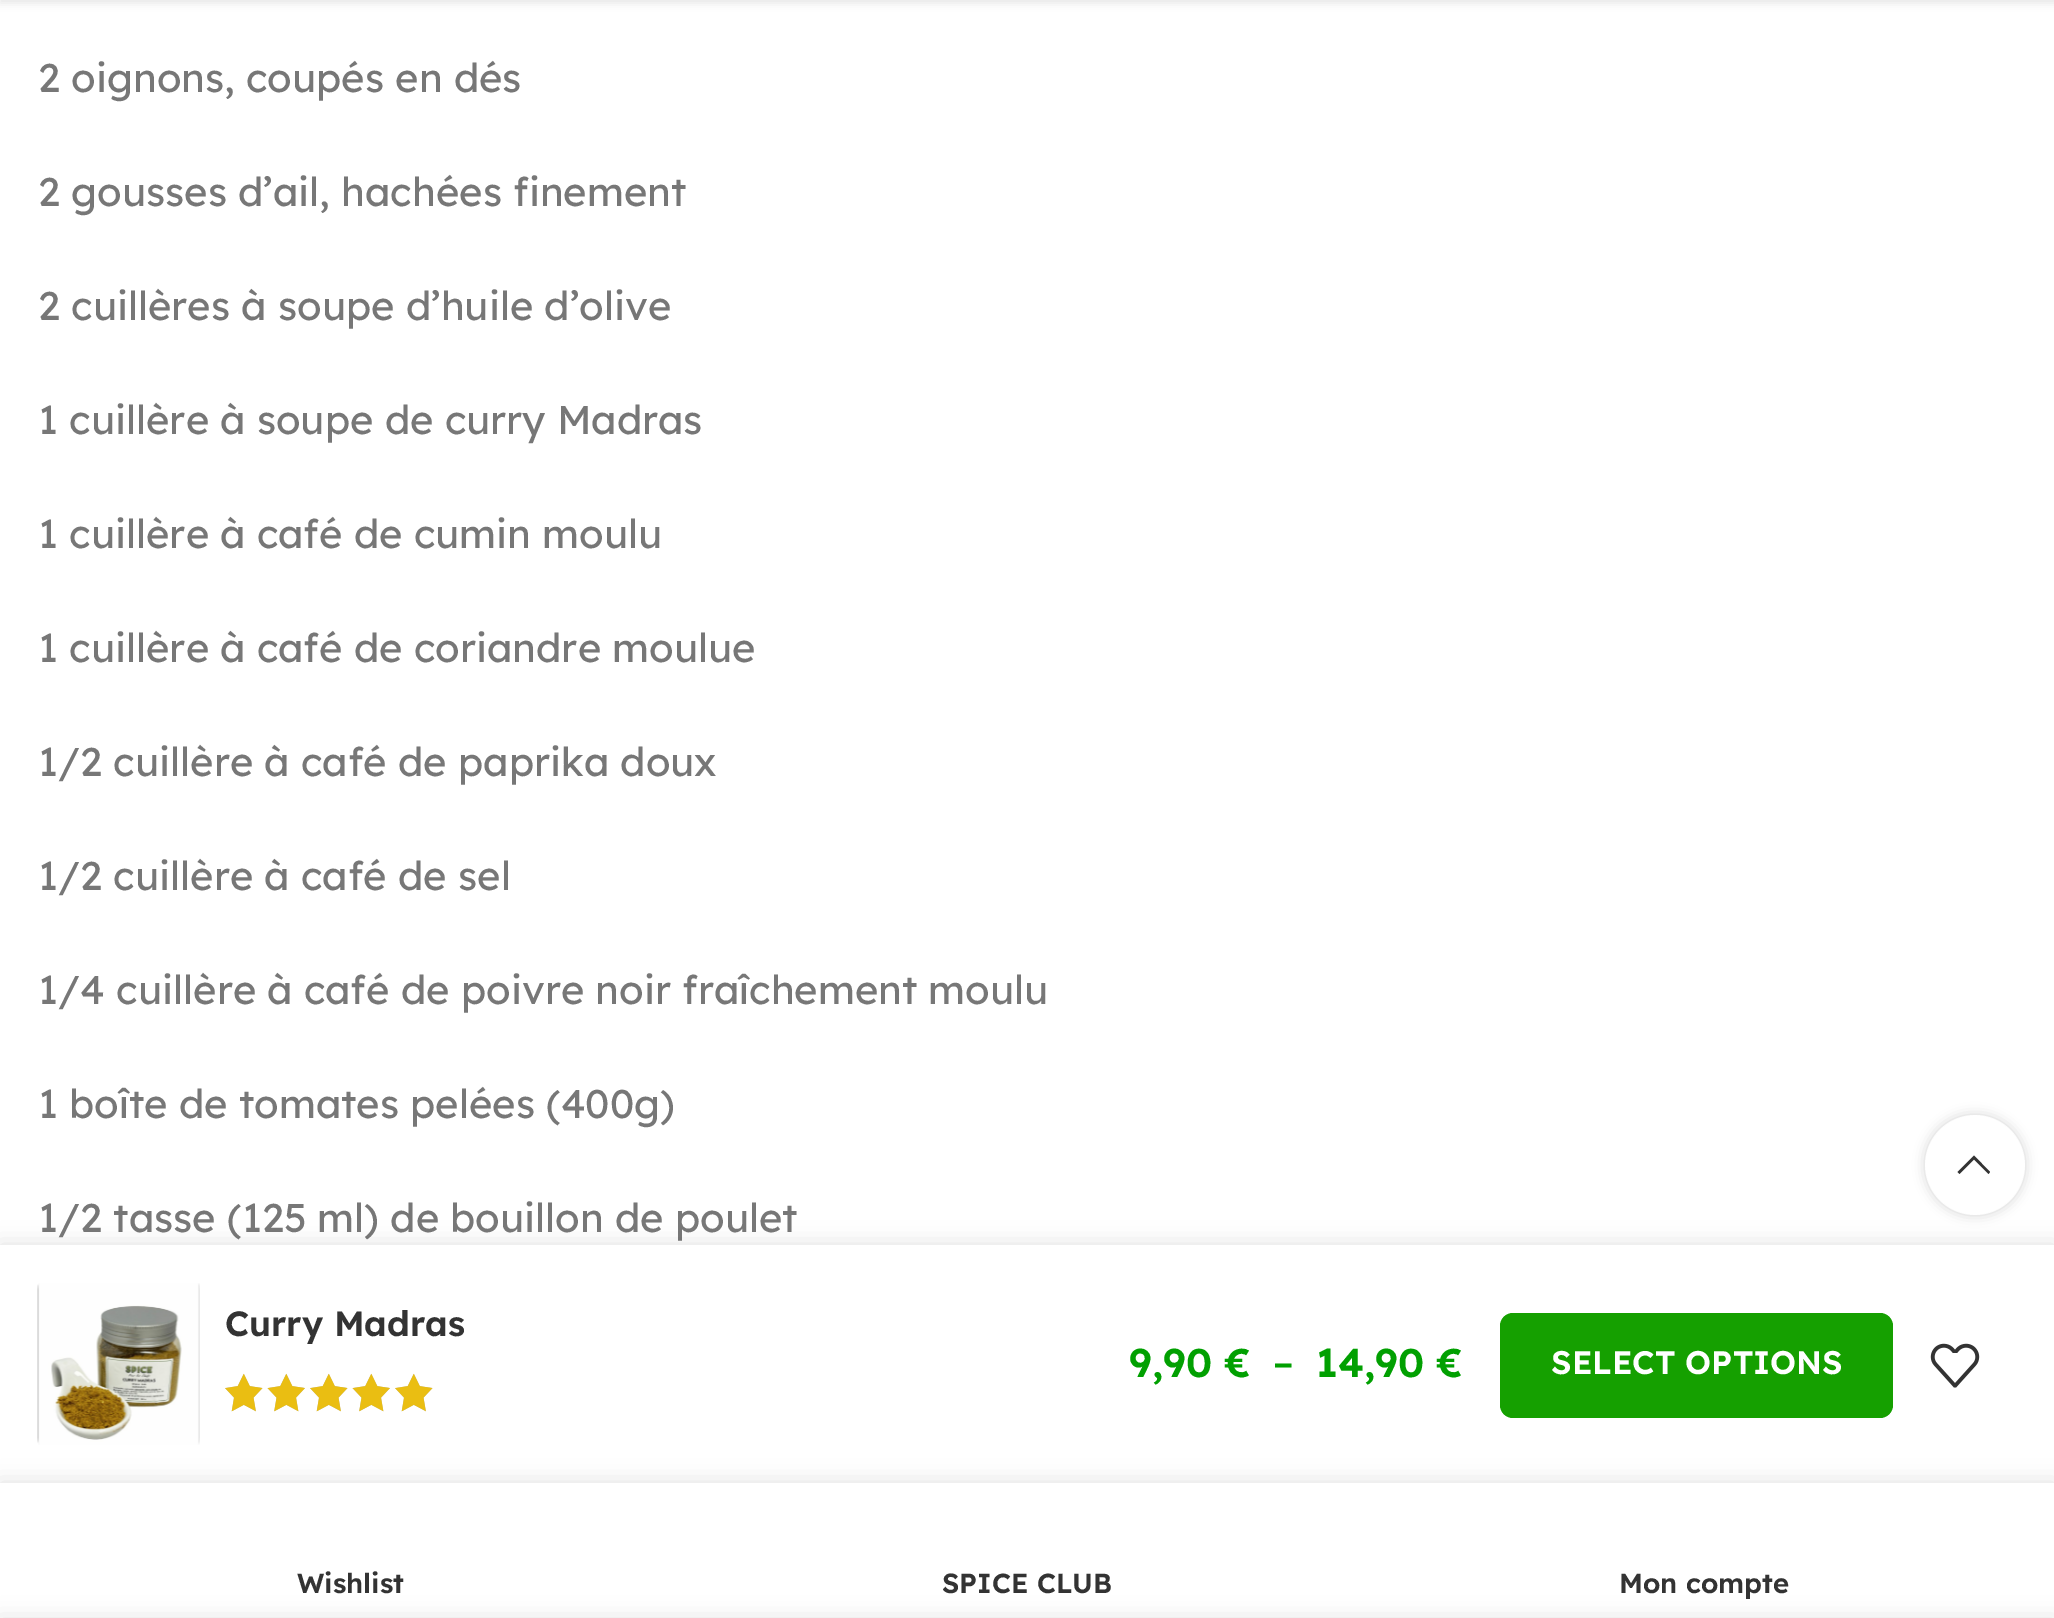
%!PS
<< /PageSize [2054 1618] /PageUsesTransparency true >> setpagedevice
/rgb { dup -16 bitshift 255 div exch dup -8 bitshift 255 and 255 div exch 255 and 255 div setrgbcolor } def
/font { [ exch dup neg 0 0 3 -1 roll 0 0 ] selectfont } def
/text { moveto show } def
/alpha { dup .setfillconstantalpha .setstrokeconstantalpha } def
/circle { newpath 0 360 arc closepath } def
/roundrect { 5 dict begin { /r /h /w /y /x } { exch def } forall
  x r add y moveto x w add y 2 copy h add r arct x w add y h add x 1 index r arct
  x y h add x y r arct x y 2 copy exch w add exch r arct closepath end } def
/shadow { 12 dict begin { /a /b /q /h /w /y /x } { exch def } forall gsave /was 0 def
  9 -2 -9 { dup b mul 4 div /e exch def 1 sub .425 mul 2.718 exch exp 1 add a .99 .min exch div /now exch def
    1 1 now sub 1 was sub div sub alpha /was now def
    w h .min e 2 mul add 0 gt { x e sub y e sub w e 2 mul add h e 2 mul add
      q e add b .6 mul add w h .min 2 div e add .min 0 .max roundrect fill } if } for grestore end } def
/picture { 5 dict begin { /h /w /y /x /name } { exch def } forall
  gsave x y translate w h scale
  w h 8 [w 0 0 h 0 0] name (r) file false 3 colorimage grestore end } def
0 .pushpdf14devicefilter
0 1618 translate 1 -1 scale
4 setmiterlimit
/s1 { /Lexend-Regular 40 font 16#777777 rgb } def
/s2 { /Lexend-SemiBold 35 font 16#333333 rgb } def
/s3 { /Lexend-SemiBold 40 font 16#01A001 rgb } def
/s4 { /Lexend-Regular 40 font 16#01A001 rgb } def
/s5 { /Lexend-SemiBold 32.5 font 16#FFFFFF rgb } def
/s6 { /Lexend-SemiBold 27.5 font 16#333333 rgb } def
16#FFFFFF rgb
0 0 2054 1618 rectfill
16#000000 rgb
0 -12 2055 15 0 4 0.1 shadow
s1
(2 oignons, coupés en dés) 38 92 text
(2 gousses d’ail, hachées finement) 38 206 text
(2 cuillères à soupe d’huile d’olive) 38 320 text
(1 cuillère à soupe de curry Madras) 38 434 text
(1 cuillère à café de cumin moulu) 38 548 text
(1 cuillère à café de coriandre moulue) 38 662 text
(1/2 cuillère à café de paprika doux) 38 776 text
(1/2 cuillère à café de sel) 38 890 text
(1/4 cuillère à café de poivre noir fraîchement moulu) 38 1004 text
(1 boîte de tomates pelées \(400g\)) 38 1118 text
(1/2 tasse \(125 ml\) de bouillon de poulet) 38 1232 text
gsave
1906 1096 moveto 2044 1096 lineto 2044 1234 lineto 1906 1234 lineto closepath 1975 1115 moveto 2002.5 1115 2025 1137.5 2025 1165 curveto 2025 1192.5 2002.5 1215 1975 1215 curveto 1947.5 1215 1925 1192.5 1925 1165 curveto 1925 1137.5 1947.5 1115 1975 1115 curveto closepath eoclip newpath
16#000000 rgb
1925 1115 100 100 50 6 0.17 shadow
grestore
16#000000 rgb
0 1245 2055 238 0 11 0.12 shadow
0.9 alpha
16#FFFFFF rgb
1975 1165 50 circle fill
1 alpha
16#333333 rgb
1988.5 1174 moveto 1990 1172 lineto 1974 1155.5 lineto 1957.5 1172 lineto 1959.5 1174 lineto 1974 1159.5 lineto closepath fill
16#FFFFFF rgb
0 1245 2054 238 rectfill
(pic1.raw) 37 1283 163 162 picture
s2
(Curry Madras) 225 1336 text
(pic3.raw) 225 1374 208 38 picture
(pic2.raw) 225 1373 208 39 picture
s3
(9,90 €) 1129 1377 text
s4
(–) 1273 1377 text
s3
(14,90 €) 1316 1377 text
16#15A000 rgb
1500 1313 393 105 13 roundrect fill
s5
(SELECT OPTIONS) 1551 1374 text
(pic4.raw) 1930 1343 50 45 picture
16#000000 rgb
0 1483 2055 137 0 11 0.12 shadow
16#FFFFFF rgb
0 1483 2054 135 rectfill
s6
(Wishlist) 297 1593 text
(SPICE CLUB) 942 1593 text
(Mon compte) 1619 1593 text
16#000000 rgb
0 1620 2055 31 0 11 0.14 shadow
.poppdf14devicefilter showpage
